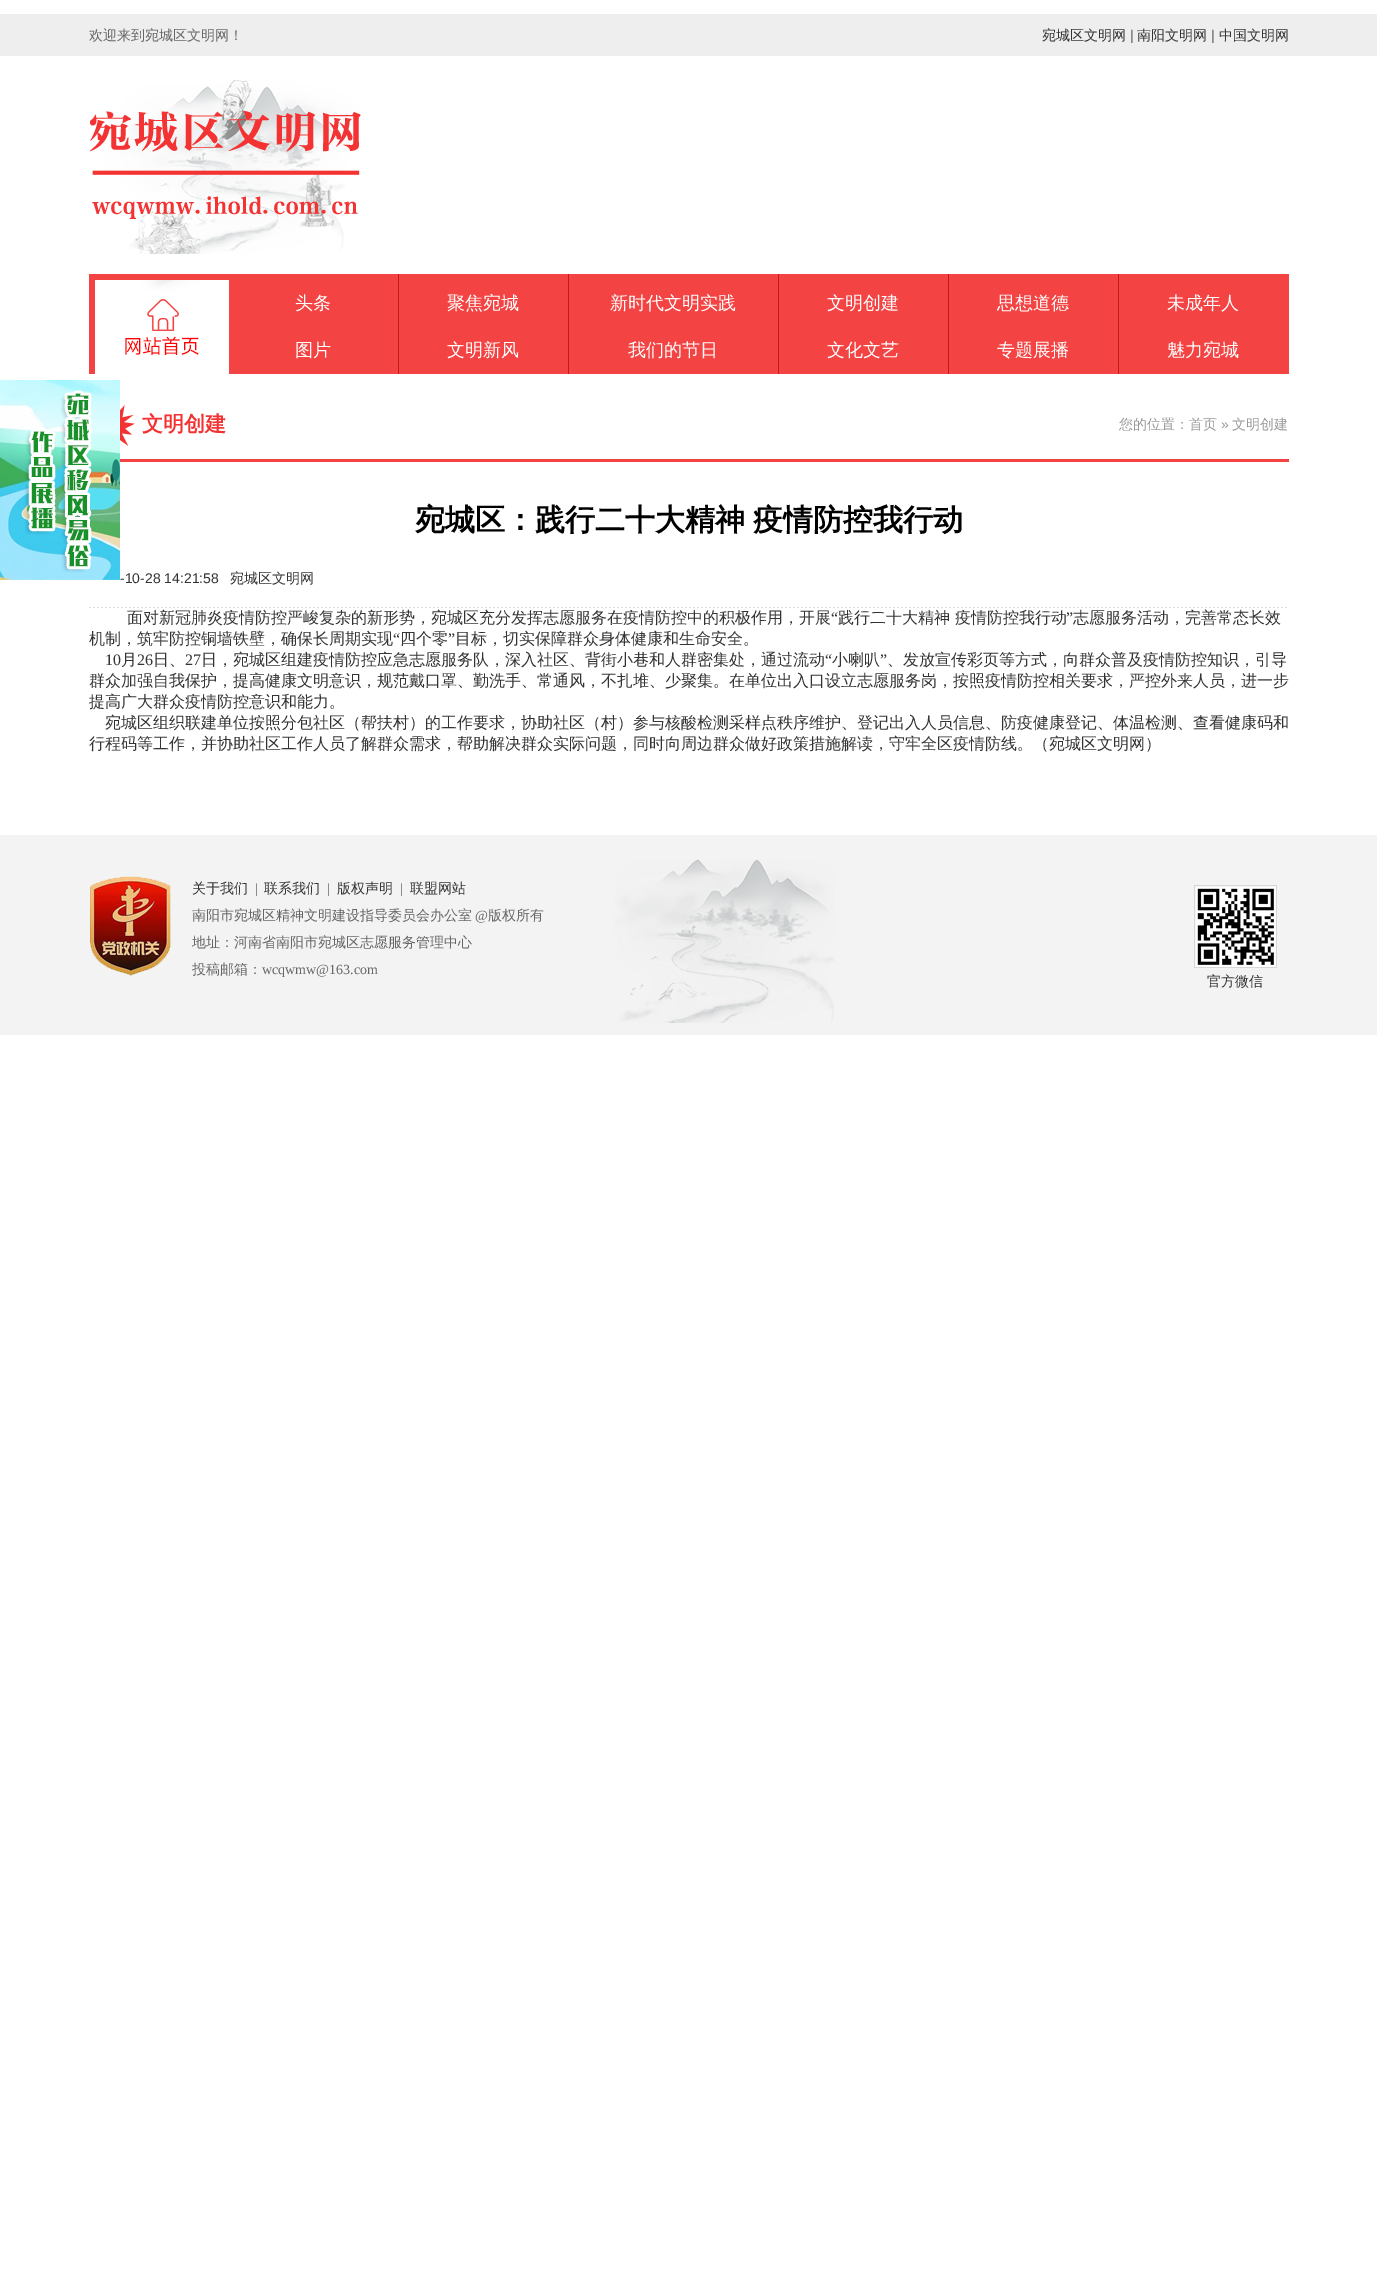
%!PS
<< /PageSize [1377 2270] >> setpagedevice
/rgb { dup -16 bitshift 255 div exch dup -8 bitshift 255 and 255 div exch 255 and 255 div setrgbcolor } def
/font { [ exch dup neg 0 0 3 -1 roll 0 0 ] selectfont } def
/text { moveto show } def
/picture { 5 dict begin { /h /w /y /x /name } { exch def } forall
  gsave x y translate w h scale
  w h 8 [w 0 0 h 0 0] name (r) file false 3 colorimage grestore end } def
0 2270 translate 1 -1 scale
4 setmiterlimit
/s1 { /WenQuanYiZenHei-Medium 14 font 16#666666 rgb } def
/s2 { /WenQuanYiZenHei-Medium 14 font 16#333333 rgb } def
/s3 { /LiberationSans-Regular 14 font 16#666666 rgb } def
/s4 { /WenQuanYiZenHei-Medium 18 font 16#FFFFFF rgb } def
/s5 { /WenQuanYiZenHei-Bold 21 font 16#F33333 rgb } def
/s6 { /WenQuanYiZenHei-Medium 14 font 16#999999 rgb } def
/s7 { /LiberationSans-Regular 14 font 16#999999 rgb } def
/s8 { /LiberationSans-Regular 14 font 16#333333 rgb } def
/s9 { /WenQuanYiZenHei-Medium 16 font 16#333333 rgb } def
/s10 { /LiberationSerif-Regular 16 font 16#333333 rgb } def
/s11 { /LiberationSerif-Regular 14 font 16#666666 rgb } def
16#FFFFFF rgb
0 0 1377 2270 rectfill
16#EEEEEE rgb
0 14 1377 42 rectfill
s1
(欢迎来到宛城区文明网！) 89 40 text
s2
(宛城区文明网) 1042 40 text
s3
(|) 1130 40 text
s2
(南阳文明网) 1137 40 text
s3
(|) 1211 40 text
s2
(中国文明网) 1219 40 text
(pic1.raw) 89 80 272 174 picture
16#F34343 rgb
89 274 1200 100 rectfill
16#FFFFFF rgb
95 280 134 94 rectfill
(pic2.raw) 125 280 74 76 picture
s4
(头条) 295 309 text
(图片) 295 356 text
16#BE1B1B rgb
398 274 1 100 rectfill
s4
(聚焦宛城) 447 309 text
(文明新风) 447 356 text
16#BE1B1B rgb
568 274 1 100 rectfill
s4
(新时代文明实践) 610 309 text
(我们的节日) 628 356 text
16#BE1B1B rgb
778 274 1 100 rectfill
s4
(文明创建) 827 309 text
(文化文艺) 827 356 text
16#BE1B1B rgb
948 274 1 100 rectfill
s4
(思想道德) 997 309 text
(专题展播) 997 356 text
16#BE1B1B rgb
1118 274 1 100 rectfill
s4
(未成年人) 1167 309 text
(魅力宛城) 1167 356 text
(pic3.raw) 0 380 120 200 picture
16#F34343 rgb
120 459 1169 3 rectfill
(pic4.raw) 120 405 15 41 picture
s5
(文明创建) 142 431 text
s6
(您的位置：首页) 1119 429 text
s7
(») 1221 429 text
s6
(文明创建) 1232 429 text
/WenQuanYiZenHei-Bold 30 font
16#000000 rgb
415 530 moveto -1 0 32 (宛城区：践行二十大精神 疫情防控我行动) widthshow
(pic5.raw) 89 607 1198 1 picture
s8
(-10-28 14:21:58) 120 583 text
s2
(宛城区文明网) 230 583 text
s9
(面对新冠肺炎疫情防控严峻复杂的新形势，宛城区充分发挥志愿服务在疫情防控中的积极作用，开展) 127 623 text
s10
(“) 831 623 text
s9
(践行二十大精神 疫情防控我行动) 838 623 text
s10
(”) 1066 623 text
s9
(志愿服务活动，完善常态长效) 1073 623 text
(机制，筑牢防控铜墙铁壁，确保长周期实现) 89 644 text
s10
(“) 393 644 text
s9
(四个零) 400 644 text
s10
(”) 448 644 text
s9
(目标，切实保障群众身体健康和生命安全。) 455 644 text
s10
(10) 105 665 text
s9
(月) 121 665 text
s10
(26) 137 665 text
s9
(日、) 153 665 text
s10
(27) 185 665 text
s9
(日，宛城区组建疫情防控应急志愿服务队，深入社区、背街小巷和人群密集处，通过流动) 201 665 text
s10
(“) 825 665 text
s9
(小喇叭) 832 665 text
s10
(”) 880 665 text
s9
(、发放宣传彩页等方式，向群众普及疫情防控知识，引导) 887 665 text
(群众加强自我保护，提高健康文明意识，规范戴口罩、勤洗手、常通风，不扎堆、少聚集。在单位出入口设立志愿服务岗，按照疫情防控相关要求，严控外来人员，进一步) 89 686 text
(提高广大群众疫情防控意识和能力。) 89 707 text
(宛城区组织联建单位按照分包社区（帮扶村）的工作要求，协助社区（村）参与核酸检测采样点秩序维护、登记出入人员信息、防疫健康登记、体温检测、查看健康码和) 105 728 text
(行程码等工作，并协助社区工作人员了解群众需求，帮助解决群众实际问题，同时向周边群众做好政策措施解读，守牢全区疫情防线。（宛城区文明网）) 89 749 text
16#F4F3F3 rgb
0 835 1377 200 rectfill
(pic6.raw) 615 859 220 164 picture
(pic7.raw) 89 876 82 100 picture
s2
(关于我们) 192 893 text
s11
(|) 255 893 text
s2
(联系我们) 264 893 text
s11
(|) 327 893 text
s2
(版权声明) 337 893 text
s11
(|) 400 893 text
s2
(联盟网站) 410 893 text
s1
(南阳市宛城区精神文明建设指导委员会办公室) 192 920 text
s11
(@) 475 920 text
s1
(版权所有) 488 920 text
gsave
192 875 697 108 rectclip
(地址：河南省南阳市宛城区志愿服务管理中心) 192 947 text
(投稿邮箱：) 192 974 text
grestore
s11
(wcqwmw@163.com) 262 974 text
(pic8.raw) 1194 885 83 83 picture
s2
(官方微信) 1207 986 text
showpage
